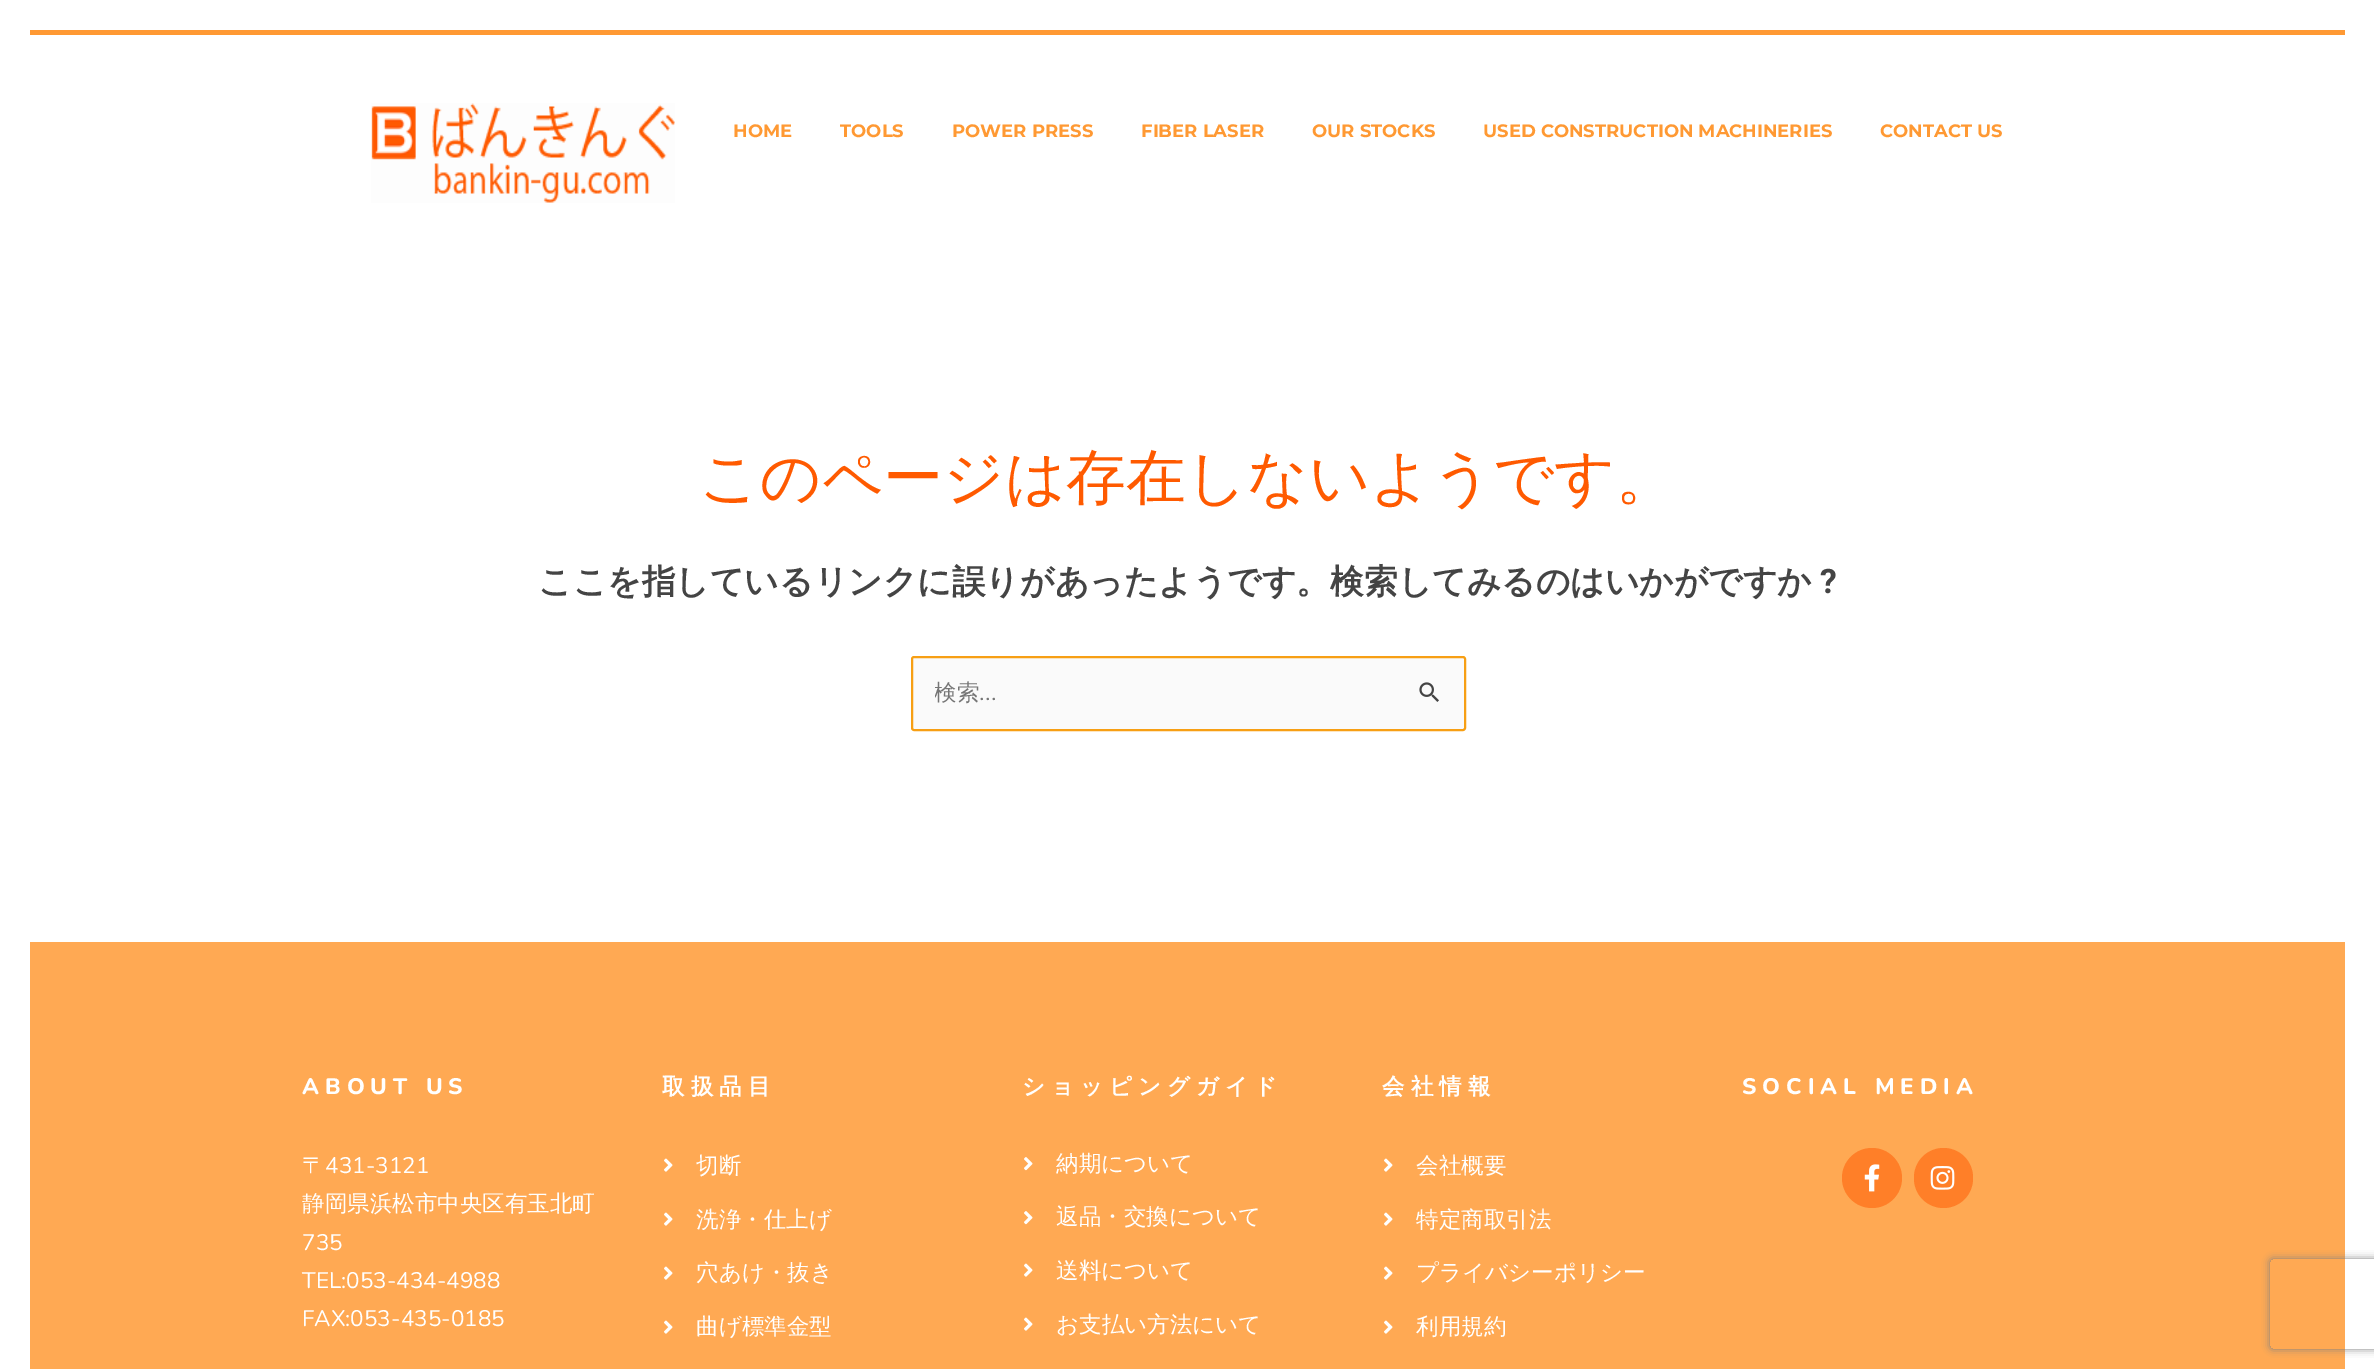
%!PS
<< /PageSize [2374 1369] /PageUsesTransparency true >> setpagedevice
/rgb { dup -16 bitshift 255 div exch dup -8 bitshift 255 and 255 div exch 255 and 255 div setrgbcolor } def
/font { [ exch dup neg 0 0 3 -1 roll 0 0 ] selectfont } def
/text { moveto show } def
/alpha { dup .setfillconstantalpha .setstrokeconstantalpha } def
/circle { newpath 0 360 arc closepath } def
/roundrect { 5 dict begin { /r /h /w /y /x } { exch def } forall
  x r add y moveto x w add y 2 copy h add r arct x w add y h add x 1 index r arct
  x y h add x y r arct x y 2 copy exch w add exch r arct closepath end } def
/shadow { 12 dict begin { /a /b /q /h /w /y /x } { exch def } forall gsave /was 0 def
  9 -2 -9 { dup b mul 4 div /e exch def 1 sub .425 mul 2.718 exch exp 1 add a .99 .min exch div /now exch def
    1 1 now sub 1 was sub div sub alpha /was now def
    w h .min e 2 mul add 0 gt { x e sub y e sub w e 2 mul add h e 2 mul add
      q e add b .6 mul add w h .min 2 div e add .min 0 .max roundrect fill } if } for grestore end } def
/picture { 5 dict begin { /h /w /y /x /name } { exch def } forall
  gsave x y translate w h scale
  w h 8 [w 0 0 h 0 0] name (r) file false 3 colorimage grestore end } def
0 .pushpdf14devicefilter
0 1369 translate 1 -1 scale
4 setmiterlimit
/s1 { /Montserrat-Bold 18 font 16#FF9933 rgb } def
/s2 { /WenQuanYiZenHei-Medium 60 font 16#FF5A00 rgb } def
/s3 { /WenQuanYiZenHei-Bold 33.75 font 16#444444 rgb } def
/s4 { /Roboto-Bold 33.75 font 16#444444 rgb } def
/s5 { /WenQuanYiZenHei-Medium 22.5 font 16#757575 rgb } def
/s6 { /Roboto-Regular 22.5 font 16#757575 rgb } def
/s7 { /WenQuanYiZenHei-Medium 22.5 font 16#FFFFFF rgb } def
/s8 { /Nunito-Regular 22.5 font 16#FFFFFF rgb } def
16#FFFFFF rgb
0 0 2374 1369 rectfill
16#FF9933 rgb
30 30 2315 5 rectfill
(pic1.raw) 371 103 304 100 picture
s1
(HOME) 733 137 text
(TOOLS) 840 137 text
(POWER PRESS) 952 137 text
(FIBER LASER) 1141 137 text
(OUR STOCKS) 1312 137 text
(USED CONSTRUCTION MACHINERIES) 1483 137 text
(CONTACT US) 1880 137 text
s2
(このページは存在しないようです。) 699 498 text
s3
(ここを指しているリンクに誤りがあったようです。検索してみるのはいかがですか) 538 593 text
s4
(?) 1820 593 text
16#FAFAFA rgb
912 657 553 73 2 roundrect gsave fill grestore
16#F79F14 rgb
2 setlinewidth
stroke
gsave
935 680 456 28 rectclip
s5
(検索) 934 700 text
grestore
s6
(...) 979 700 text
(pic2.raw) 1419 682 20 20 picture
16#FFA953 rgb
30 942 2315 427 rectfill
/Nunito-ExtraBold 22.5 font
16#FFFFFF rgb
302 1094 moveto 6 0 (ABOUT US) ashow
s7
(〒) 302 1173 text
s8
(431-3121) 325 1173 text
s7
(静岡県浜松市中央区有玉北町) 302 1211 text
s8
(735) 302 1250 text
(TEL:053-434-4988) 302 1288 text
(FAX:053-435-0185) 302 1326 text
/WenQuanYiZenHei-Bold 22.5 font
662 1094 moveto 6 0 (取扱品目) ashow
(pic3.raw) 664 1158 9 14 picture
s7
(切断) 696 1173 text
(pic3.raw) 664 1212 9 14 picture
(洗浄・仕上げ) 696 1227 text
(pic3.raw) 664 1266 9 14 picture
(穴あけ・抜き) 696 1280 text
(pic3.raw) 664 1320 9 14 picture
(曲げ標準金型) 696 1334 text
/WenQuanYiZenHei-Bold 22.5 font
1022 1094 moveto 6 0 (ショッピングガイド) ashow
(pic4.raw) 1024 1157 9 14 picture
s7
(納期について) 1056 1171 text
(pic4.raw) 1024 1211 9 14 picture
(返品・交換について) 1056 1224 text
(pic3.raw) 1024 1263 9 14 picture
(送料について) 1056 1278 text
(pic3.raw) 1024 1317 9 14 picture
(お支払い方法にいて) 1056 1332 text
/WenQuanYiZenHei-Bold 22.5 font
1382 1094 moveto 6 0 (会社情報) ashow
(pic3.raw) 1384 1158 9 14 picture
s7
(会社概要) 1416 1173 text
(pic3.raw) 1384 1212 9 14 picture
(特定商取引法) 1416 1227 text
(pic3.raw) 1384 1266 9 14 picture
(プライバシーポリシー) 1416 1280 text
(pic3.raw) 1384 1320 9 14 picture
(利用規約) 1416 1334 text
/Nunito-ExtraBold 22.5 font
1742 1094 moveto 6 0 (SOCIAL MEDIA) ashow
16#FF7F28 rgb
1872 1178 30 circle fill
(pic5.raw) 1864 1164 16 28 picture
1914 1148 59 60 29.5 roundrect fill
(pic6.raw) 1930 1166 25 24 picture
gsave
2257 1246 moveto 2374 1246 lineto 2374 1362 lineto 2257 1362 lineto closepath 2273 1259 moveto 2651 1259 lineto 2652.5 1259 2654 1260.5 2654 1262 curveto 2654 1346 lineto 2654 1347.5 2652.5 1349 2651 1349 curveto 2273 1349 lineto 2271.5 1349 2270 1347.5 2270 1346 curveto 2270 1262 lineto 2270 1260.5 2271.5 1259 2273 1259 curveto closepath eoclip newpath
16#808080 rgb
2270 1259 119 90 3 4 1 shadow
grestore
.poppdf14devicefilter showpage
